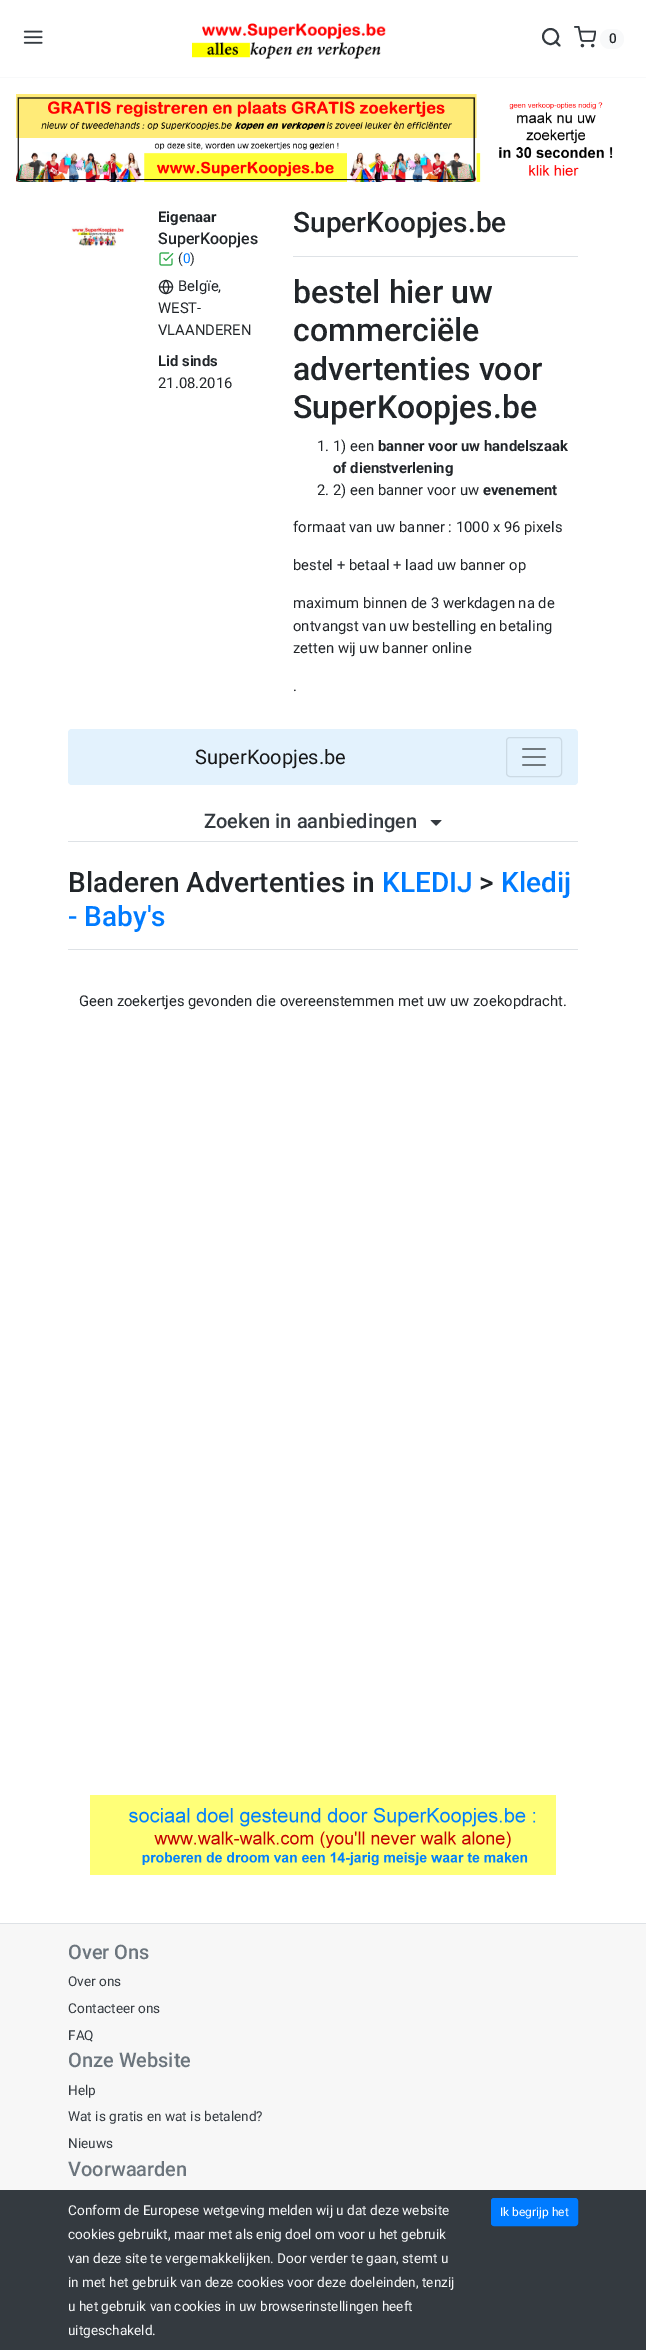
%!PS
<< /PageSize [646 2350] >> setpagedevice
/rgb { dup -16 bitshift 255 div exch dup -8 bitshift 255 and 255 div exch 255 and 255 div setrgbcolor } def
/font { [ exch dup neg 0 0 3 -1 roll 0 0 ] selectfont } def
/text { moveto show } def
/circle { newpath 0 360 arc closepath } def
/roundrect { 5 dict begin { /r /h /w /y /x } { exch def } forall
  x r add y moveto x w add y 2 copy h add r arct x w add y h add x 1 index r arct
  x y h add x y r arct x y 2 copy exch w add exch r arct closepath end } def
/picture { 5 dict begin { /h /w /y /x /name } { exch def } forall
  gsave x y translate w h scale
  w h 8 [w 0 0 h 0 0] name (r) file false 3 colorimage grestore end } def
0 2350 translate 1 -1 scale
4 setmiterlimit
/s1 { /Roboto-Medium 13.6 font 16#212529 rgb } def
/s2 { /Roboto-Bold 14.8 font 16#212529 rgb } def
/s3 { /Roboto-Medium 16 font 16#212529 rgb } def
/s4 { /Roboto-Regular 13.6 font 16#212529 rgb } def
/s5 { /Roboto-Regular 13.6 font 16#007BFF rgb } def
/s6 { /Roboto-Regular 14.8 font 16#212529 rgb } def
/s7 { /Roboto-Medium 28 font 16#212529 rgb } def
/s8 { /Roboto-Medium 32 font 16#212529 rgb } def
/s9 { /Roboto-Regular 20 font 16#171819 rgb } def
/s10 { /Roboto-Medium 20 font 16#343A40 rgb } def
/s11 { /Roboto-Medium 28 font 16#007BFF rgb } def
/s12 { /Roboto-Medium 20 font 16#6C757D rgb } def
/s13 { /Roboto-Regular 13.6 font 16#343A40 rgb } def
/s14 { /Roboto-Regular 13.6 font 16#F8F9FA rgb } def
/s15 { /Roboto-Regular 12 font 16#FFFFFF rgb } def
16#FFFFFF rgb
0 0 646 2350 rectfill
16#F8F9FA rgb
0 77 646 1 rectfill
(pic1.raw) 23 30 20 14 picture
(pic2.raw) 192 23 194 36 picture
16#343A40 rgb
1.9 setlinewidth
550.5 36.5 7.5 circle stroke
1 setlinecap
1 setlinejoin
559.5 45.5 moveto 555.5 41.5 lineto stroke
(pic3.raw) 574 26 22 22 picture
16#F8F9FA rgb
600 29 24 20 10 roundrect fill
s1
(0) 609 43 text
(pic4.raw) 16 94 597 88 picture
(pic5.raw) 71 225 53 23 picture
s2
(Eigenaar) 158 222 text
s3
(SuperKoopjes) 158 244 text
(pic6.raw) 159 252 15 14 picture
s4
(\() 178 263 text
s5
(0) 183 263 text
s4
(\)) 190 263 text
(pic7.raw) 158 279 16 16 picture
s6
(Belgïe,) 178 291 text
(WEST-) 158 313 text
(VLAANDEREN) 158 335 text
s2
(Lid sinds) 158 366 text
s6
(21.08.2016) 158 388 text
16#DEE2E6 rgb
293 256 285 1 rectfill
s7
(SuperKoopjes.be) 293 232 text
s8
(bestel hier uw) 293 303 text
(commerciële) 293 341 text
(advertenties voor) 293 380 text
(SuperKoopjes.be) 293 418 text
s6
(1. 1\) een) 317 451 text
s2
(banner voor uw handelszaak) 378 451 text
(of dienstverlening) 333 473 text
s6
(2. 2\) een banner voor uw) 317 495 text
s2
(evenement) 483 495 text
s6
(formaat van uw banner : 1000 x 96 pixels) 293 532 text
(bestel + betaal + laad uw banner op) 293 570 text
(maximum binnen de 3 werkdagen na de) 293 608 text
(ontvangst van uw bestelling en betaling) 293 631 text
(zetten wij uw banner online) 293 653 text
(.) 293 691 text
16#E3F2FD rgb
68 729 510 56 4 roundrect fill
s9
(SuperKoopjes.be) 195 764 text
16#CCDAE4 rgb
1 setlinewidth
0 setlinecap
0 setlinejoin
506.5 737.5 55 39 3.5 roundrect stroke
(pic8.raw) 522 748 24 18 picture
16#DEE2E6 rgb
68 841 510 1 rectfill
s10
(Zoeken in aanbiedingen) 204 828 text
(pic9.raw) 430 820 12 6 picture
16#DEE2E6 rgb
68 949 510 1 rectfill
s7
(Bladeren Advertenties in) 68 892 text
s11
(KLEDIJ) 382 892 text
s7
(>) 479 892 text
s11
(Kledij) 501 892 text
(- Baby's) 68 926 text
s6
(Geen zoekertjes gevonden die overeenstemmen met uw uw zoekopdracht.) 79 1006 text
(pic10.raw) 90 1795 466 80 picture
16#F7F7F7 rgb
0 1924 646 266 rectfill
16#DEE2E6 rgb
0 1923 646 1 rectfill
s12
(Over Ons) 68 1959 text
s13
(Over ons) 68 1986 text
(Contacteer ons) 68 2013 text
(FAQ) 68 2040 text
s12
(Onze Website) 68 2067 text
s13
(Help) 68 2095 text
(Wat is gratis en wat is betalend?) 68 2121 text
(Nieuws) 68 2148 text
s12
(Voorwaarden) 68 2176 text
16#343A40 rgb
0 2190 646 160 rectfill
s14
(Conform de Europese wetgeving melden wij u dat deze website) 68 2215 text
(cookies gebruikt, maar met als enig doel om voor u het gebruik) 68 2239 text
(van deze site te vergemakkelijken. Door verder te gaan, stemt u) 68 2263 text
(in met het gebruik van deze cookies voor deze doeleinden, tenzij) 68 2287 text
(u het gebruik van cookies in uw browserinstellingen heeft) 68 2311 text
(uitgeschakeld.) 68 2335 text
16#007BFF rgb
491.5 2198.5 86 27 2.5 roundrect gsave fill grestore
stroke
s15
(Ik begrijp het) 500 2216 text
showpage
